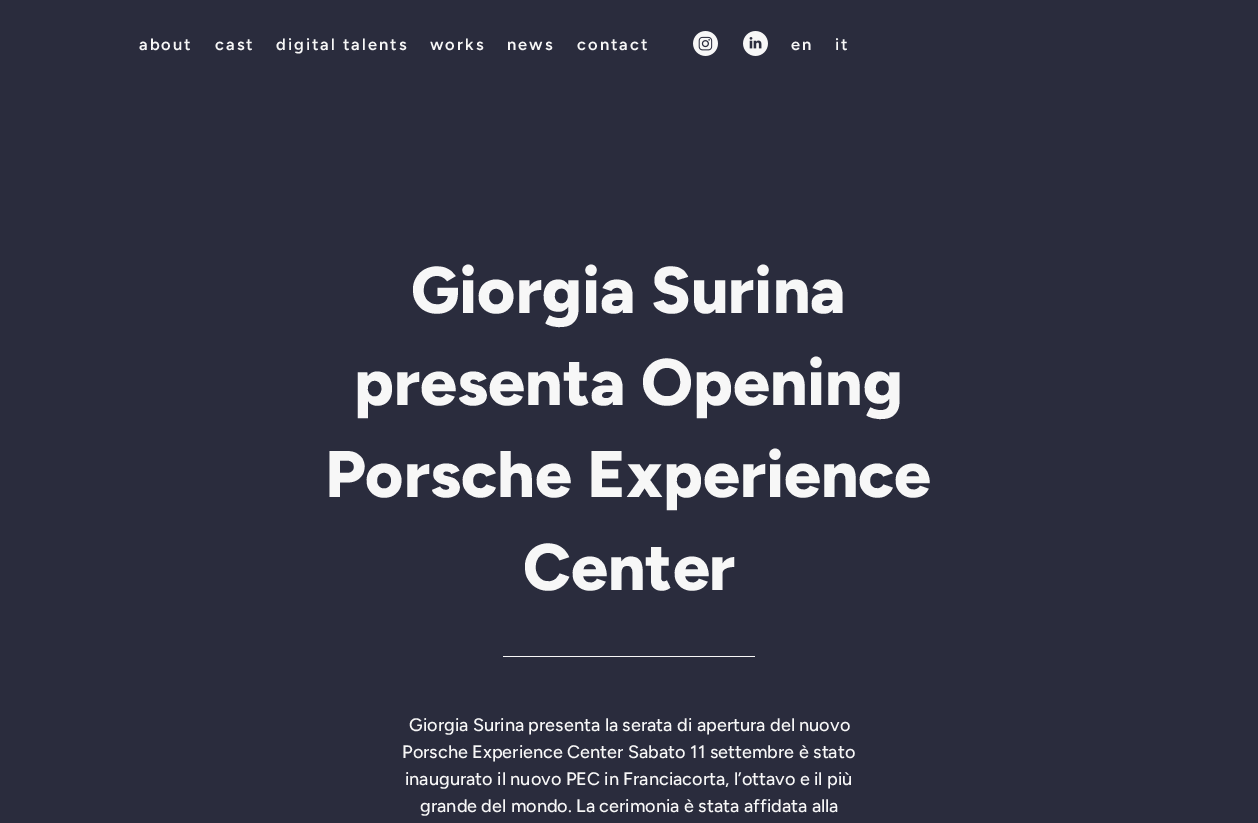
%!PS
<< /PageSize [1258 823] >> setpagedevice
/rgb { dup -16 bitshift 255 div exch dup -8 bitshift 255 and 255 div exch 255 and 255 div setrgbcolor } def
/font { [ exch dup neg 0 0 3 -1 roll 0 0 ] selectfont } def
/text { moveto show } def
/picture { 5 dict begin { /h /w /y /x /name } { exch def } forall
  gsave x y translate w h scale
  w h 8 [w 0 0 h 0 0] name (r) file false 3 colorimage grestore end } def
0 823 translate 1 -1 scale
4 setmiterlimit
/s1 { /Figtree-ExtraBold 65.75 font 16#F7F7F7 rgb } def
/s2 { /Figtree-Medium 18.1 font 16#F7F7F7 rgb } def
16#2A2C3D rgb
0 0 1258 823 rectfill
/Figtree-SemiBold 16.5 font
16#F7F7F7 rgb
139 50 moveto 2 0 (about) ashow
215 50 moveto 2 0 (cast) ashow
276 50 moveto 2 0 (digital talents) ashow
430 50 moveto 2 0 (works) ashow
507 50 moveto 2 0 (news) ashow
577 50 moveto 2 0 (contact) ashow
(pic1.raw) 693 31 25 25 picture
(pic2.raw) 743 31 25 25 picture
791 50 moveto 2 0 (en) ashow
835 50 moveto 2 0 (it) ashow
s1
(Giorgia Surina) 411 313 text
(presenta Opening) 354 405 text
(Porsche Experience) 325 497 text
(Center) 523 590 text
503 656 252 1 rectfill
s2
(Giorgia Surina presenta la serata di apertura del nuovo) 409 731 text
(Porsche Experience Center Sabato 11 settembre è stato) 402 758 text
(inaugurato il nuovo PEC in Franciacorta, l’ottavo e il più) 405 785 text
(grande del mondo. La cerimonia è stata affidata alla) 420 812 text
showpage
